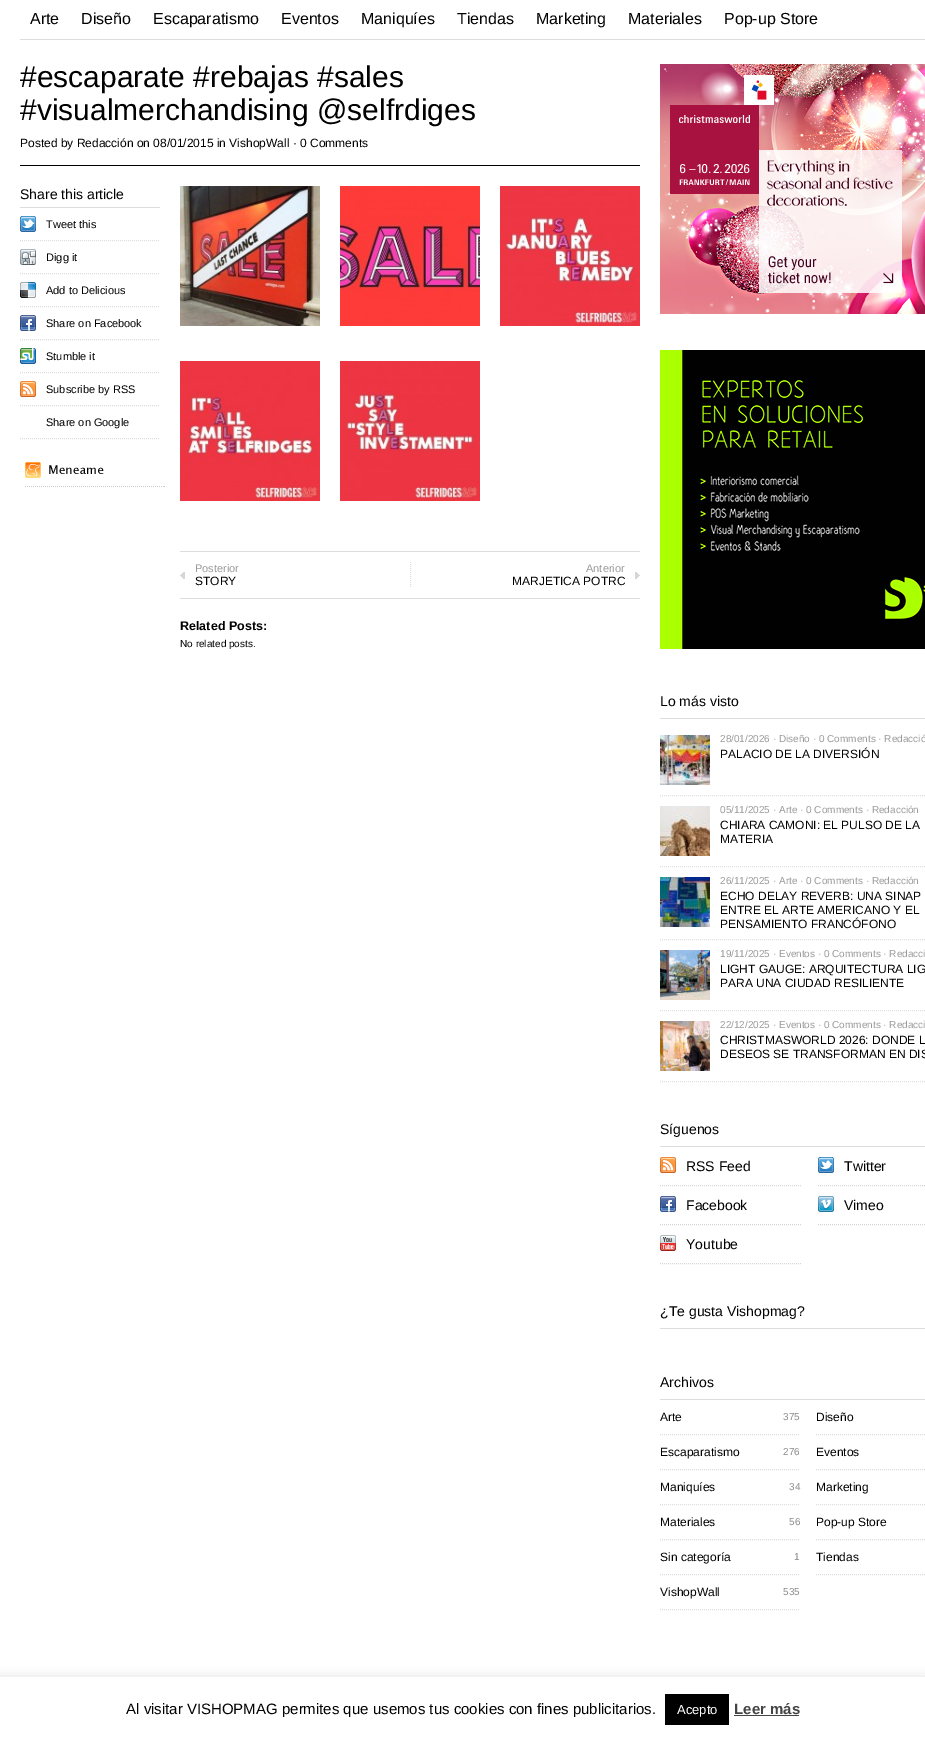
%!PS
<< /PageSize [925 1737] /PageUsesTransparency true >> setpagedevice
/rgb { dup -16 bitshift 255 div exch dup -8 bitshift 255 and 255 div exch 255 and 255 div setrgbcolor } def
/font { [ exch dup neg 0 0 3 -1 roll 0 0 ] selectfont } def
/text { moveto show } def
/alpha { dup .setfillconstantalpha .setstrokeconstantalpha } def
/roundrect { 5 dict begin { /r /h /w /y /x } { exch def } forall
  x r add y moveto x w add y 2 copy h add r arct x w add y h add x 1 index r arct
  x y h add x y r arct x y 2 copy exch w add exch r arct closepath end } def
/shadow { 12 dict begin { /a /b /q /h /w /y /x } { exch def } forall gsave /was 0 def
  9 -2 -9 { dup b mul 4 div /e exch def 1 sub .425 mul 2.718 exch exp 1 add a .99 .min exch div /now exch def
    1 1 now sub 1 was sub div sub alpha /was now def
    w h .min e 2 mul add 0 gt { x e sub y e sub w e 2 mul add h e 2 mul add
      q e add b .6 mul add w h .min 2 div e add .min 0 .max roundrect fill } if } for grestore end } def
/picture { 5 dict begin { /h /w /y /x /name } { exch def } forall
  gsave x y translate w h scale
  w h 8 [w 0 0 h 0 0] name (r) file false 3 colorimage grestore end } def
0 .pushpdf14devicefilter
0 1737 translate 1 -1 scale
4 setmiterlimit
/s1 { /LiberationSans-Regular 16 font 16#000000 rgb } def
/s2 { /LiberationSans-Regular 30 font 16#000000 rgb } def
/s3 { /LiberationSans-Regular 12 font 16#000000 rgb } def
/s4 { /LiberationSans-Regular 14 font 16#000000 rgb } def
/s5 { /LiberationSans-Regular 11 font 16#000000 rgb } def
/s6 { /LiberationSans-Regular 11 font 16#999999 rgb } def
/s7 { /LiberationSans-Bold 12.5 font 16#000000 rgb } def
/s8 { /LiberationSans-Regular 10 font 16#000000 rgb } def
/s9 { /LiberationSans-Regular 10 font 16#999999 rgb } def
/s10 { /LiberationSans-Regular 10 font 16#898989 rgb } def
/s11 { /LiberationSans-Regular 15 font 16#000000 rgb } def
/s12 { /LiberationSans-Regular 13 font 16#FFFFFF rgb } def
/s13 { /LiberationSans-Bold 15 font 16#444444 rgb } def
16#FFFFFF rgb
0 0 925 1737 rectfill
16#DDDDDD rgb
20 39 905 1 rectfill
s1
(Arte) 30 24 text
(Diseño) 81 24 text
(Escaparatismo) 153 24 text
(Eventos) 281 24 text
(Maniquíes) 361 24 text
(Tiendas) 457 24 text
(Marketing) 536 24 text
(Materiales) 628 24 text
(Pop-up Store) 724 24 text
20 165 620 1 rectfill
s2
(#escaparate #rebajas #sales) 20 87 text
(#visualmerchandising @selfrdiges) 20 120 text
s3
(Posted by Redacción on 08/01/2015 in VishopWall · 0 Comments) 20 147 text
16#DDDDDD rgb
20 207 140 1 rectfill
s4
(Share this article) 20 199 text
16#DDDDDD rgb
[1 1] 0 setdash
20 240.5 moveto 160 240.5 lineto stroke
(pic1.raw) 20 216 16 16 picture
s5
(Tweet this) 46 228 text
16#DDDDDD rgb
20 273.5 moveto 160 273.5 lineto stroke
(pic2.raw) 20 249 16 16 picture
s5
(Digg it) 46 261 text
16#DDDDDD rgb
20 306.5 moveto 160 306.5 lineto stroke
(pic3.raw) 20 282 16 16 picture
s5
(Add to Delicious) 46 294 text
16#DDDDDD rgb
20 339.5 moveto 160 339.5 lineto stroke
(pic4.raw) 20 315 16 16 picture
s5
(Share on Facebook) 46 327 text
16#DDDDDD rgb
20 372.5 moveto 160 372.5 lineto stroke
(pic5.raw) 20 348 16 16 picture
s5
(Stumble it) 46 360 text
16#DDDDDD rgb
20 405.5 moveto 160 405.5 lineto stroke
(pic6.raw) 20 381 16 16 picture
s5
(Subscribe by RSS) 46 393 text
16#DDDDDD rgb
20 438.5 moveto 160 438.5 lineto stroke
s5
(Share on Google) 46 426 text
(pic7.raw) 25 462 140 25 picture
(pic8.raw) 180 186 140 140 picture
(pic9.raw) 340 186 140 140 picture
(pic10.raw) 500 186 140 140 picture
(pic11.raw) 180 361 140 140 picture
(pic12.raw) 340 361 140 140 picture
16#DDDDDD rgb
180 551 460 1 rectfill
180 598 460 1 rectfill
(pic13.raw) 180 572 5 7 picture
s6
(Posterior) 195 572 text
s3
(STORY) 195 585 text
16#DDDDDD rgb
410.5 562 moveto 410.5 588 lineto stroke
(pic14.raw) 635 572 5 7 picture
s6
(Anterior) 586 572 text
s3
(MARJETICA POTRC) 512 585 text
s7
(Related Posts:) 180 630 text
s8
(No related posts.) 180 647 text
(pic15.raw) 660 64 265 250 picture
(pic16.raw) 660 350 265 299 picture
16#DDDDDD rgb
660 718 265 1 rectfill
s4
(Lo más visto) 660 706 text
16#E0E0E0 rgb
660 795.5 moveto 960 795.5 lineto stroke
(pic17.raw) 660 735 50 50 picture
s9
(28/01/2026 · Diseño · 0 Comments · Redacció) 720 742 text
s3
(PALACIO DE LA DIVERSIÓN) 720 758 text
16#E0E0E0 rgb
660 866.5 moveto 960 866.5 lineto stroke
(pic18.raw) 660 806 50 50 picture
s9
(05/11/2025 · Arte · 0 Comments · Redacción) 720 813 text
s3
(CHIARA CAMONI: EL PULSO DE LA) 720 829 text
(MATERIA) 720 843 text
16#E0E0E0 rgb
660 939.5 moveto 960 939.5 lineto stroke
(pic19.raw) 660 877 50 50 picture
s9
(26/11/2025 · Arte · 0 Comments · Redacción) 720 884 text
s3
(ECHO DELAY REVERB: UNA SINAP) 720 900 text
(ENTRE EL ARTE AMERICANO Y EL) 720 914 text
(PENSAMIENTO FRANCÓFONO) 720 928 text
16#E0E0E0 rgb
660 1010.5 moveto 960 1010.5 lineto stroke
(pic20.raw) 660 950 50 50 picture
s9
(19/11/2025 · Eventos · 0 Comments · Redacci) 720 957 text
s3
(LIGHT GAUGE: ARQUITECTURA LIG) 720 973 text
(PARA UNA CIUDAD RESILIENTE) 720 987 text
16#E0E0E0 rgb
660 1081.5 moveto 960 1081.5 lineto stroke
(pic21.raw) 660 1021 50 50 picture
s9
(22/12/2025 · Eventos · 0 Comments · Redacci) 720 1028 text
s3
(CHRISTMASWORLD 2026: DONDE L) 720 1044 text
(DESEOS SE TRANSFORMAN EN DIS) 720 1058 text
16#DDDDDD rgb
660 1146 265 1 rectfill
s4
(Síguenos) 660 1134 text
16#D6D6D6 rgb
660 1185.5 moveto 802 1185.5 lineto stroke
(pic6.raw) 660 1157 16 16 picture
s4
(RSS Feed) 686 1171 text
16#D6D6D6 rgb
818 1185.5 moveto 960 1185.5 lineto stroke
(pic1.raw) 818 1157 16 16 picture
s4
(Twitter) 844 1171 text
16#D6D6D6 rgb
660 1224.5 moveto 802 1224.5 lineto stroke
(pic4.raw) 660 1196 16 16 picture
s4
(Facebook) 686 1210 text
16#D6D6D6 rgb
818 1224.5 moveto 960 1224.5 lineto stroke
(pic22.raw) 818 1196 16 16 picture
s4
(Vimeo) 844 1210 text
16#D6D6D6 rgb
660 1263.5 moveto 802 1263.5 lineto stroke
(pic23.raw) 660 1235 16 16 picture
s4
(Youtube) 686 1249 text
16#DDDDDD rgb
660 1328 265 1 rectfill
s4
(¿Te gusta Vishopmag?) 660 1316 text
16#DDDDDD rgb
660 1399 265 1 rectfill
s4
(Archivos) 660 1387 text
16#DDDDDD rgb
660 1434.5 moveto 800 1434.5 lineto stroke
s3
(Arte) 660 1421 text
s10
(375) 783 1420 text
16#DDDDDD rgb
816 1434.5 moveto 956 1434.5 lineto stroke
s3
(Diseño) 816 1421 text
16#DDDDDD rgb
660 1469.5 moveto 800 1469.5 lineto stroke
s3
(Escaparatismo) 660 1456 text
s10
(276) 783 1455 text
16#DDDDDD rgb
816 1469.5 moveto 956 1469.5 lineto stroke
s3
(Eventos) 816 1456 text
16#DDDDDD rgb
660 1504.5 moveto 800 1504.5 lineto stroke
s3
(Maniquíes) 660 1491 text
s10
(34) 789 1490 text
16#DDDDDD rgb
816 1504.5 moveto 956 1504.5 lineto stroke
s3
(Marketing) 816 1491 text
16#DDDDDD rgb
660 1539.5 moveto 800 1539.5 lineto stroke
s3
(Materiales) 660 1526 text
s10
(56) 789 1525 text
16#DDDDDD rgb
816 1539.5 moveto 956 1539.5 lineto stroke
s3
(Pop-up Store) 816 1526 text
16#DDDDDD rgb
660 1574.5 moveto 800 1574.5 lineto stroke
s3
(Sin categoría) 660 1561 text
s10
(1) 794 1560 text
16#DDDDDD rgb
816 1574.5 moveto 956 1574.5 lineto stroke
s3
(Tiendas) 816 1561 text
16#DDDDDD rgb
660 1609.5 moveto 800 1609.5 lineto stroke
s3
(VishopWall) 660 1596 text
s10
(535) 783 1595 text
16#ACABAB rgb
0 1676 925 60 0 5 0.3 shadow
16#FFFFFF rgb
0 1677 925 60 rectfill
s11
(Al visitar VISHOPMAG permites que usemos tus cookies con fines publicitarios.) 126 1714 text
665 1694 64 31 rectfill
s12
(Acepto) 677 1714 text
s13
(Leer más) 734 1714 text
734 1715 65 1 rectfill
.poppdf14devicefilter showpage
